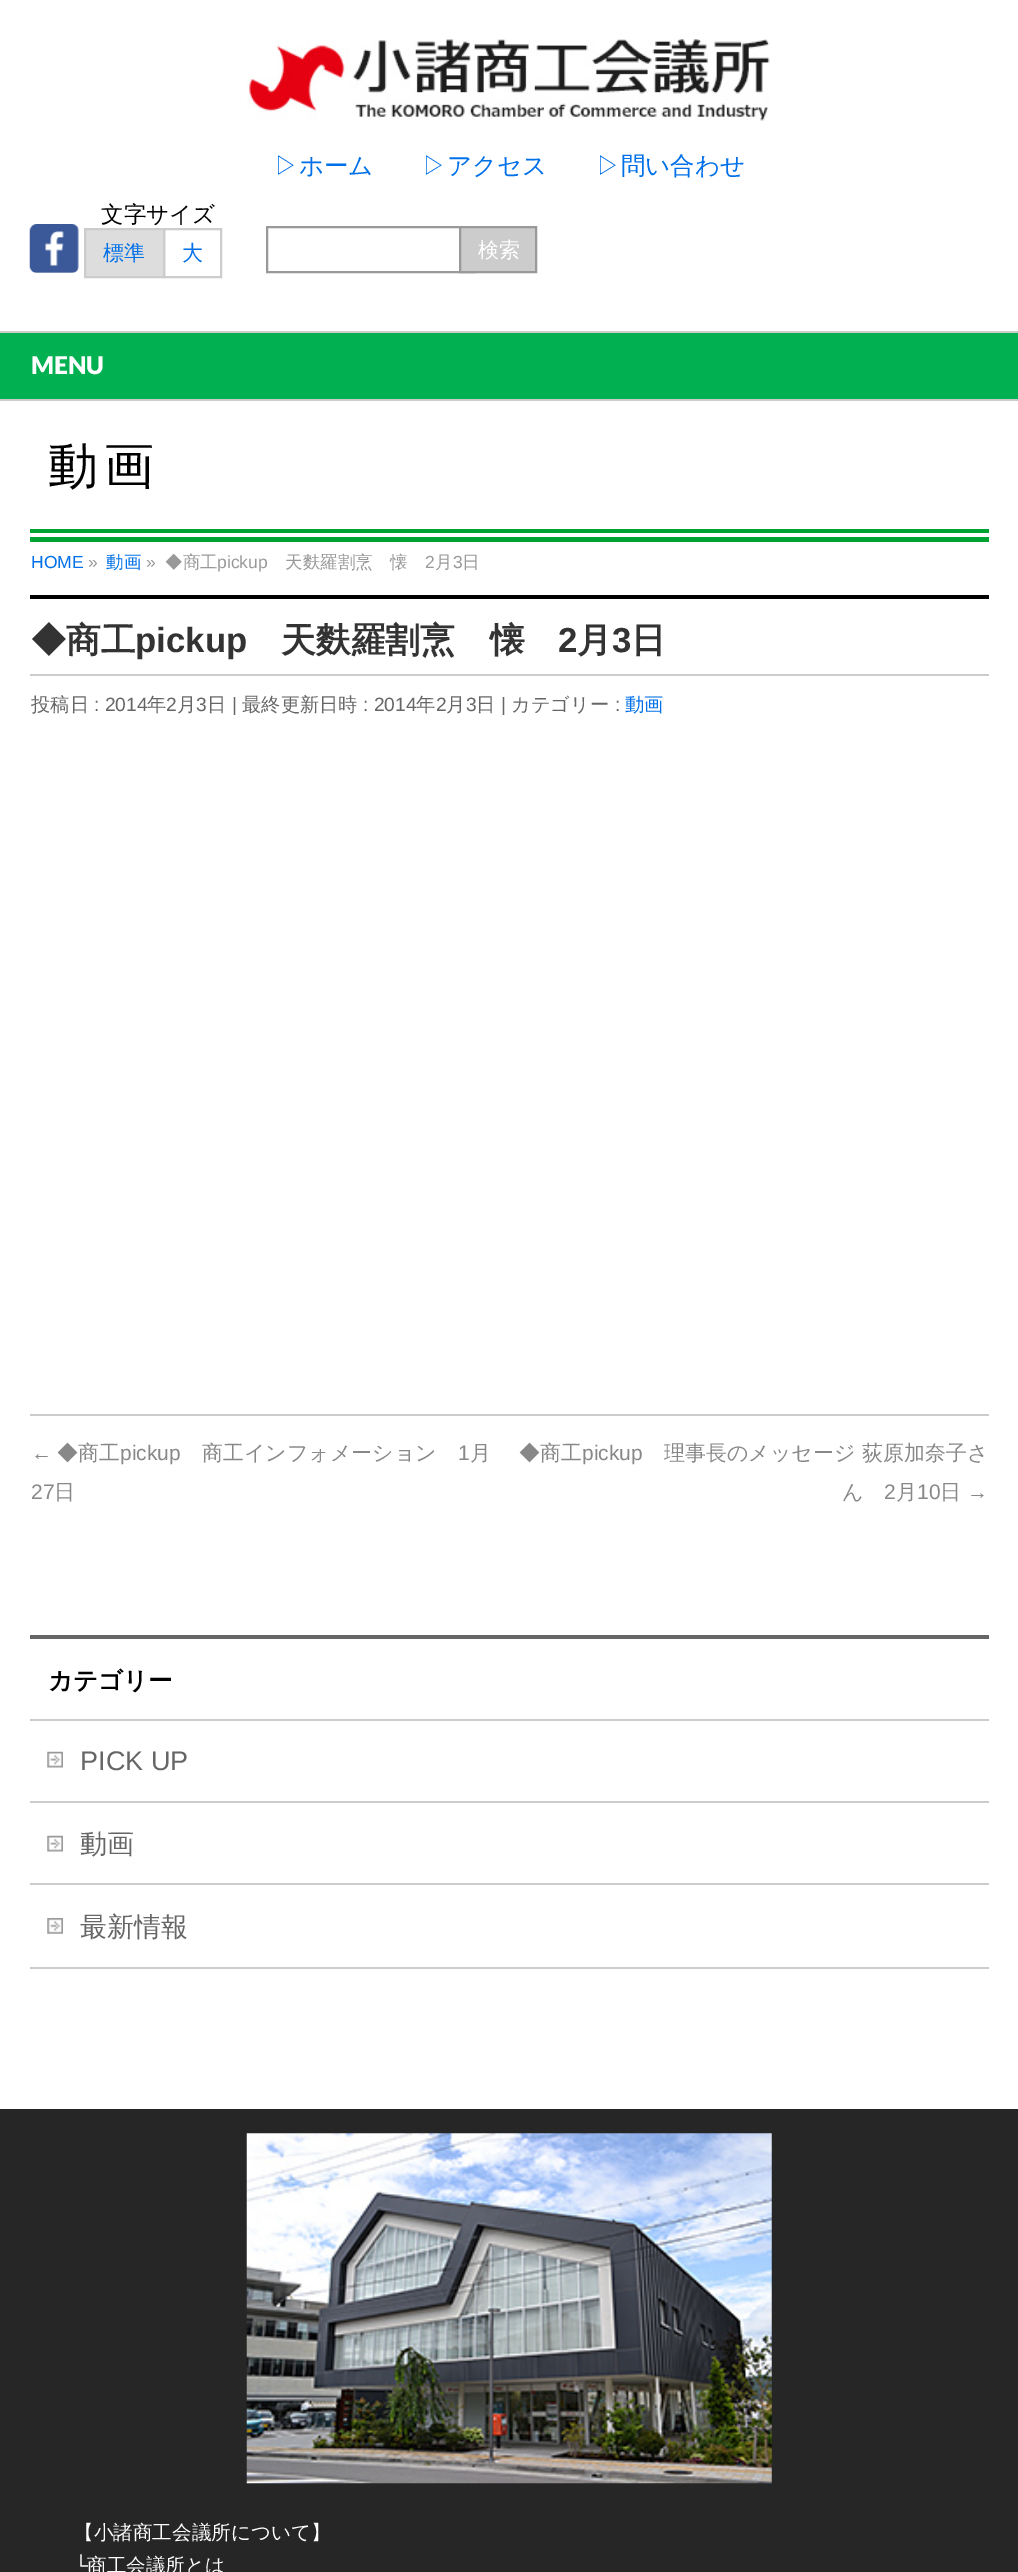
%!PS
<< /PageSize [1018 2572] >> setpagedevice
/rgb { dup -16 bitshift 255 div exch dup -8 bitshift 255 and 255 div exch 255 and 255 div setrgbcolor } def
/font { [ exch dup neg 0 0 3 -1 roll 0 0 ] selectfont } def
/text { moveto show } def
/picture { 5 dict begin { /h /w /y /x /name } { exch def } forall
  gsave x y translate w h scale
  w h 8 [w 0 0 h 0 0] name (r) file false 3 colorimage grestore end } def
0 2572 translate 1 -1 scale
4 setmiterlimit
/s1 { /WenQuanYiZenHei-Medium 24.5 font 16#0070E8 rgb } def
/s2 { /WenQuanYiZenHei-Medium 22.5 font 16#000000 rgb } def
/s3 { /WenQuanYiZenHei-Medium 21 font 16#FFFFFF rgb } def
/s4 { /WenQuanYiZenHei-Medium 21 font 16#0070E8 rgb } def
/s5 { /Lato-Black 24.5 font 16#FFFFFF rgb } def
/s6 { /LiberationSans-Regular 17.5 font 16#0070E8 rgb } def
/s7 { /LiberationSans-Regular 17.5 font 16#999999 rgb } def
/s8 { /WenQuanYiZenHei-Medium 17.5 font 16#0070E8 rgb } def
/s9 { /WenQuanYiZenHei-Medium 17.5 font 16#999999 rgb } def
/s10 { /WenQuanYiZenHei-Bold 34.75 font 16#333333 rgb } def
/s11 { /LiberationSans-Bold 34.75 font 16#333333 rgb } def
/s12 { /WenQuanYiZenHei-Medium 19.25 font 16#666666 rgb } def
/s13 { /LiberationSans-Regular 19.25 font 16#666666 rgb } def
/s14 { /WenQuanYiZenHei-Medium 19.25 font 16#0070E8 rgb } def
/s15 { /LiberationSans-Regular 21 font 16#888888 rgb } def
/s16 { /WenQuanYiZenHei-Medium 21 font 16#888888 rgb } def
/s17 { /WenQuanYiZenHei-Bold 24.5 font 16#000000 rgb } def
/s18 { /LiberationSans-Regular 27 font 16#666666 rgb } def
/s19 { /WenQuanYiZenHei-Medium 27 font 16#666666 rgb } def
/s20 { /WenQuanYiZenHei-Medium 19.6 font 16#FFFFFF rgb } def
/s21 { /LiberationSans-Regular 19.6 font 16#FFFFFF rgb } def
16#FFFFFF rgb
0 0 1018 2572 rectfill
(pic1.raw) 247 39 523 82 picture
s1
(▷ホーム) 274 174 text
(▷アクセス) 422 174 text
(▷問い合わせ) 596 174 text
s2
(文字サイズ) 101 222 text
(pic2.raw) 29 224 50 49 picture
16#999999 rgb
2 setlinewidth
267 227 208 45 rectstroke
16#CCCCCC rgb
460 227 moveto 536 227 lineto 536 272 lineto 460 272 lineto closepath gsave fill grestore
16#999999 rgb
stroke
s3
(検索) 478 257 text
16#DDDDDD rgb
85 229 moveto 164 229 lineto 164 277 lineto 85 277 lineto closepath gsave fill grestore
16#CCCCCC rgb
stroke
s4
(標準) 103 260 text
16#CCCCCC rgb
164 229 57 48 rectstroke
s4
(大) 182 260 text
16#CCCCCC rgb
0 331 1018 2 rectfill
0 399 1018 2 rectfill
16#01B051 rgb
0 333 1018 66 rectfill
s5
(MENU) 31 374 text
/WenQuanYiZenHei-Medium 50 font
16#000000 rgb
48 483 moveto 6 0 (動画) ashow
16#00A331 rgb
30 529 959 4 rectfill
30 537 959 5 rectfill
s6
(HOME) 31 568 text
s7
(») 88 568 text
s8
(動画) 106 568 text
s7
(») 146 568 text
s9
(◆商工) 165 568 text
s7
(pickup) 217 568 text
s9
(天麩羅割烹　懐) 285 568 text
s7
(2) 425 568 text
s9
(月) 435 568 text
s7
(3) 453 568 text
s9
(日) 462 568 text
16#000000 rgb
30 595 959 4 rectfill
16#CCCCCC rgb
30 674 959 2 rectfill
s10
(◆商工) 31 652 text
s11
(pickup) 135 652 text
s10
(天麩羅割烹　懐) 281 652 text
s11
(2) 558 652 text
s10
(月) 577 652 text
s11
(3) 612 652 text
s10
(日) 631 652 text
s12
(投稿日) 31 711 text
s13
(: 2014) 94 711 text
s12
(年) 147 711 text
s13
(2) 166 711 text
s12
(月) 177 711 text
s13
(3) 196 711 text
s12
(日) 207 711 text
s13
(|) 232 711 text
s12
(最終更新日時) 242 711 text
s13
(: 2014) 363 711 text
s12
(年) 416 711 text
s13
(2) 436 711 text
s12
(月) 446 711 text
s13
(3) 466 711 text
s12
(日) 476 711 text
s13
(|) 501 711 text
s12
(カテゴリー) 511 711 text
s13
(:) 615 711 text
s14
(動画) 625 711 text
16#CCCCCC rgb
30 1414 959 2 rectfill
s15
(←) 31 1460 text
s16
(◆商工) 57 1460 text
s15
(pickup) 120 1460 text
s16
(商工インフォメーション) 202 1460 text
s15
(1) 458 1460 text
s16
(月) 470 1460 text
s15
(27) 31 1499 text
s16
(日) 54 1499 text
(◆商工) 519 1460 text
s15
(pickup) 582 1460 text
s16
(理事長のメッセージ 荻原加奈子さ) 664 1460 text
(ん) 842 1499 text
s15
(2) 884 1499 text
s16
(月) 896 1499 text
s15
(10) 917 1499 text
s16
(日) 940 1499 text
s15
(→) 967 1499 text
16#666666 rgb
30 1635 959 4 rectfill
16#CCCCCC rgb
30 1719 959 2 rectfill
s17
(カテゴリー) 48 1689 text
16#CCCCCC rgb
30 1801 959 2 rectfill
(pic3.raw) 47 1751 16 17 picture
s18
(PICK UP) 80 1770 text
16#CCCCCC rgb
30 1883 959 2 rectfill
(pic3.raw) 47 1835 16 17 picture
s19
(動画) 80 1853 text
16#CCCCCC rgb
30 1967 959 2 rectfill
(pic4.raw) 47 1918 16 16 picture
s19
(最新情報) 80 1936 text
16#262626 rgb
0 2109 1018 463 rectfill
(pic5.raw) 246 2133 526 351 picture
s20
(【小諸商工会議所について】) 74 2539 text
s21
(└) 74 2572 text
s20
(商工会議所とは) 87 2572 text
showpage
